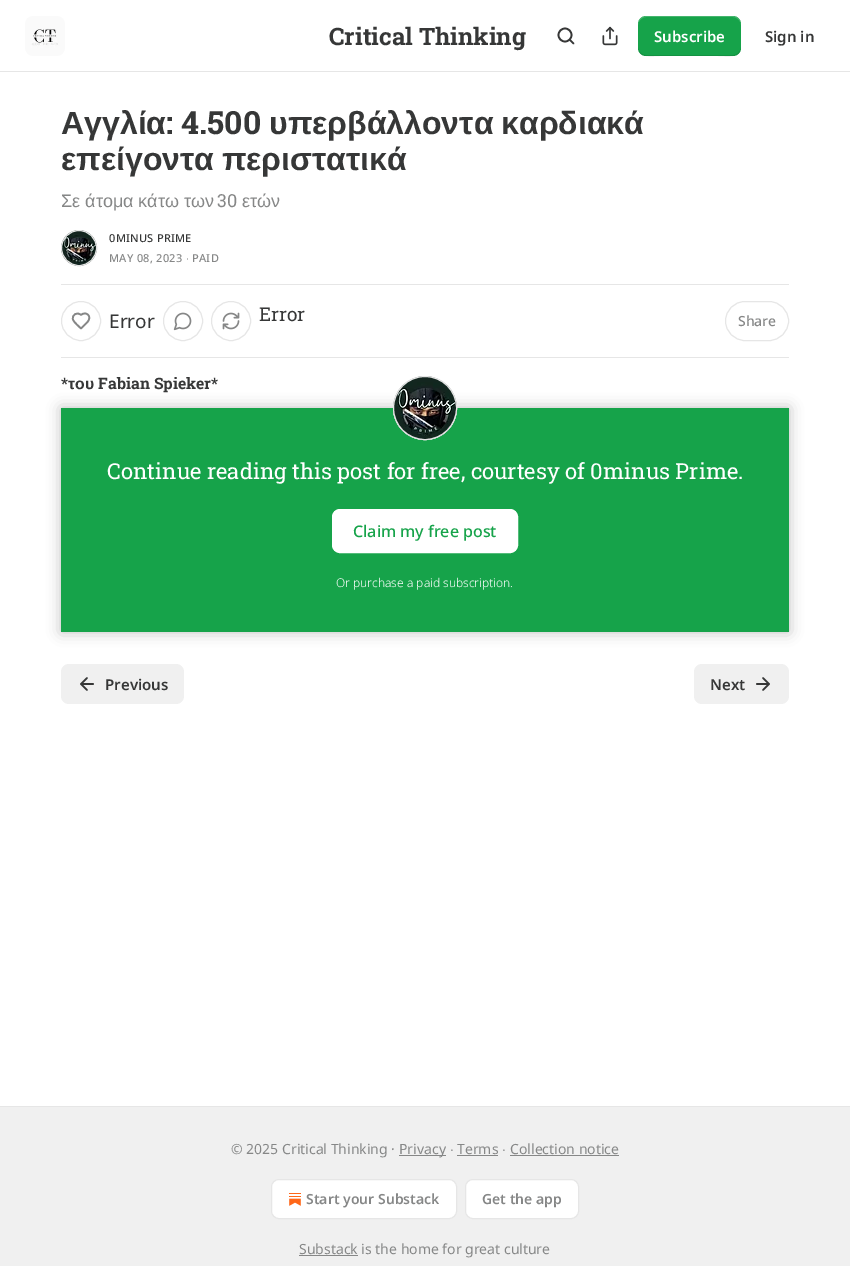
%!PS
<< /PageSize [850 1266] /PageUsesTransparency true >> setpagedevice
/rgb { dup -16 bitshift 255 div exch dup -8 bitshift 255 and 255 div exch 255 and 255 div setrgbcolor } def
/font { [ exch dup neg 0 0 3 -1 roll 0 0 ] selectfont } def
/text { moveto show } def
/alpha { dup .setfillconstantalpha .setstrokeconstantalpha } def
/circle { newpath 0 360 arc closepath } def
/roundrect { 5 dict begin { /r /h /w /y /x } { exch def } forall
  x r add y moveto x w add y 2 copy h add r arct x w add y h add x 1 index r arct
  x y h add x y r arct x y 2 copy exch w add exch r arct closepath end } def
/shadow { 12 dict begin { /a /b /q /h /w /y /x } { exch def } forall gsave /was 0 def
  9 -2 -9 { dup b mul 4 div /e exch def 1 sub .425 mul 2.718 exch exp 1 add a .99 .min exch div /now exch def
    1 1 now sub 1 was sub div sub alpha /was now def
    w h .min e 2 mul add 0 gt { x e sub y e sub w e 2 mul add h e 2 mul add
      q e add b .6 mul add w h .min 2 div e add .min 0 .max roundrect fill } if } for grestore end } def
/picture { 5 dict begin { /h /w /y /x /name } { exch def } forall
  gsave x y translate w h scale
  w h 8 [w 0 0 h 0 0] name (r) file false 3 colorimage grestore end } def
0 .pushpdf14devicefilter
0 1266 translate 1 -1 scale
4 setmiterlimit
/s1 { /RobotoSlab-Bold 24 font 16#363737 rgb } def
/s2 { /NotoSans-SemiBold 15 font 16#FFFFFF rgb } def
/s3 { /NotoSans-SemiBold 15 font 16#363737 rgb } def
/s4 { /LiberationSans-Bold 32 font 16#363737 rgb } def
/s5 { /RobotoSlab-Bold 32 font 16#363737 rgb } def
/s6 { /LiberationSans-Regular 18 font 16#868787 rgb } def
/s7 { /RobotoSlab-Regular 18 font 16#868787 rgb } def
/s8 { /NotoSans-Regular 19 font 16#363737 rgb } def
/s9 { /RobotoSlab-Regular 19 font 16#363737 rgb } def
/s10 { /NotoSans-Medium 14 font 16#868787 rgb } def
/s11 { /RobotoSlab-Bold 15.75 font 16#363737 rgb } def
/s12 { /LiberationSans-Bold 15.75 font 16#363737 rgb } def
/s13 { /RobotoSlab-Regular 22 font 16#FFFFFF rgb } def
/s14 { /NotoSans-Medium 16 font 16#16A34A rgb } def
/s15 { /NotoSans-Light 12 font 16#FFFFFF rgb } def
/s16 { /NotoSans-Regular 14 font 16#868787 rgb } def
/s17 { /LiberationSans-Regular 14 font 16#868787 rgb } def
/s18 { /NotoSans-SemiBold 14 font 16#868787 rgb } def
16#FFFFFF rgb
0 0 850 1266 rectfill
16#E6E6E6 rgb
0 71 850 1 rectfill
(pic1.raw) 25 16 40 40 picture
s1
(Critical Thinking) 329 45 text
1.7 setlinewidth
565 35 6.5 circle stroke
1 setlinecap
1 setlinejoin
573.5 43.5 moveto 570 40 lineto stroke
(pic2.raw) 602 26 16 20 picture
16#16A34A rgb
638 16 103 40 8 roundrect fill
0.1 alpha
16#000000 rgb
638 47 moveto 638 59 652 56 660 56 curveto 718 56 lineto 727 56 741 59 741 47 curveto 741 51 737 55 733 55 curveto 646 55 lineto 642 55 638 51 638 47 curveto closepath fill
0.2 alpha
16#FFFFFF rgb
646 17 moveto 733 17 lineto 737 17 741 21 741 25 curveto 741 13 727 16 718 16 curveto 660 16 lineto 652 16 638 13 638 25 curveto 638 21 642 17 646 17 curveto closepath fill
1 alpha
s2
(Subscribe) 654 42 text
s3
(Sign in) 765 42 text
s4
(Αγγλία) 61 134 text
s5
(: 4.500) 166 134 text
s4
(υπερβάλλοντα) 269 134 text
(καρδιακά) 501 134 text
61 170 moveto -1 0 32 (επείγοντα περιστατικά) widthshow
s6
(Σε άτομα κάτω των) 61 207 text
s7
(30) 217 207 text
s6
(ετών) 242 207 text
16#E6E6E6 rgb
1 setlinewidth
0 setlinecap
0 setlinejoin
79 248 17.5 circle stroke
(pic3.raw) 61 230 36 36 picture
79 248 17.5 circle stroke
/NotoSans-Medium 11 font
16#363737 rgb
109 242 moveto 0.25 0 (0MINUS PRIME) ashow
16#868787 rgb
109 262 moveto 0.25 0 (MAY 08, 2023) ashow
/LiberationSans-Regular 11 font
186 262 moveto 0.25 0 (∙) ashow
/NotoSans-Medium 11 font
192 262 moveto 0.25 0 (PAID) ashow
16#E6E6E6 rgb
61 284 728 1 rectfill
61 357 728 1 rectfill
81 321 19.5 circle stroke
16#868787 rgb
1.7 setlinewidth
1 setlinecap
1 setlinejoin
87 322.5 moveto 93 316.5 86 310.5 81 315 curveto 77.5 311.5 71.5 314.5 73 319.5 curveto 74 322.5 79 326.5 81 328.5 curveto closepath stroke
s8
(Error) 109 328 text
16#E6E6E6 rgb
1 setlinewidth
0 setlinecap
0 setlinejoin
183 321 19.5 circle stroke
(pic4.raw) 173 312 19 19 picture
231 321 19.5 circle stroke
(pic5.raw) 222 312 18 18 picture
s9
(Error) 259 321 text
16#E6E6E6 rgb
725.5 301.5 63 39 19.5 roundrect stroke
s10
(Share) 738 326 text
s11
(*) 61 389 text
s12
(του) 68 389 text
s11
(Fabian Spieker*) 98 389 text
16#16A34A rgb
61 408 728 224 rectfill
16#FFFFFF rgb
332.5 509.5 185 43 7.5 roundrect gsave fill grestore
stroke
gsave
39 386 moveto 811 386 lineto 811 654 lineto 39 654 lineto closepath 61 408 moveto 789 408 lineto 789 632 lineto 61 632 lineto closepath eoclip newpath
16#000000 rgb
61 408 728 224 0 7 0.25 shadow
grestore
16#E6E6E6 rgb
425 408 31.5 circle stroke
(pic6.raw) 393 376 64 64 picture
425 408 31.5 circle stroke
s13
(Continue reading this post for free, courtesy of 0minus Prime.) 107 479 text
s14
(Claim my free post) 353 537 text
s15
(Or purchase a paid subscription.) 336 587 text
16#F0F0F0 rgb
61 664 123 40 8 roundrect fill
16#363737 rgb
1.7 setlinewidth
1 setlinecap
1 setlinejoin
87 690 moveto 81 684 lineto 87 678 lineto 93 684 moveto 81 684 lineto stroke
s3
(Previous) 105 690 text
16#F0F0F0 rgb
694 664 95 40 8 roundrect fill
s3
(Next) 710 690 text
757 684 moveto 769 684 lineto 763 678 moveto 769 684 lineto 763 690 lineto stroke
16#F0F0F0 rgb
0 1107 850 159 rectfill
16#E6E6E6 rgb
0 1106 850 1 rectfill
s16
(© 2025 Critical Thinking ·) 231 1154 text
399 1155 47 1 rectfill
(Privacy) 399 1154 text
s17
(∙) 450 1154 text
s16
(Terms) 457 1154 text
457 1155 41 1 rectfill
s17
(∙) 502 1154 text
s16
(Collection notice) 510 1154 text
510 1155 109 1 rectfill
16#FFFFFF rgb
271.5 1179.5 185 39 7.5 roundrect gsave fill grestore
16#E6E6E6 rgb
1 setlinewidth
0 setlinecap
0 setlinejoin
stroke
(pic7.raw) 289 1193 12 13 picture
s18
(Start your Substack) 306 1204 text
16#FFFFFF rgb
465.5 1179.5 113 39 7.5 roundrect gsave fill grestore
16#E6E6E6 rgb
stroke
s18
(Get the app) 482 1204 text
299 1255 59 1 rectfill
s16
(Substack is the home for great culture) 299 1254 text
.poppdf14devicefilter showpage
